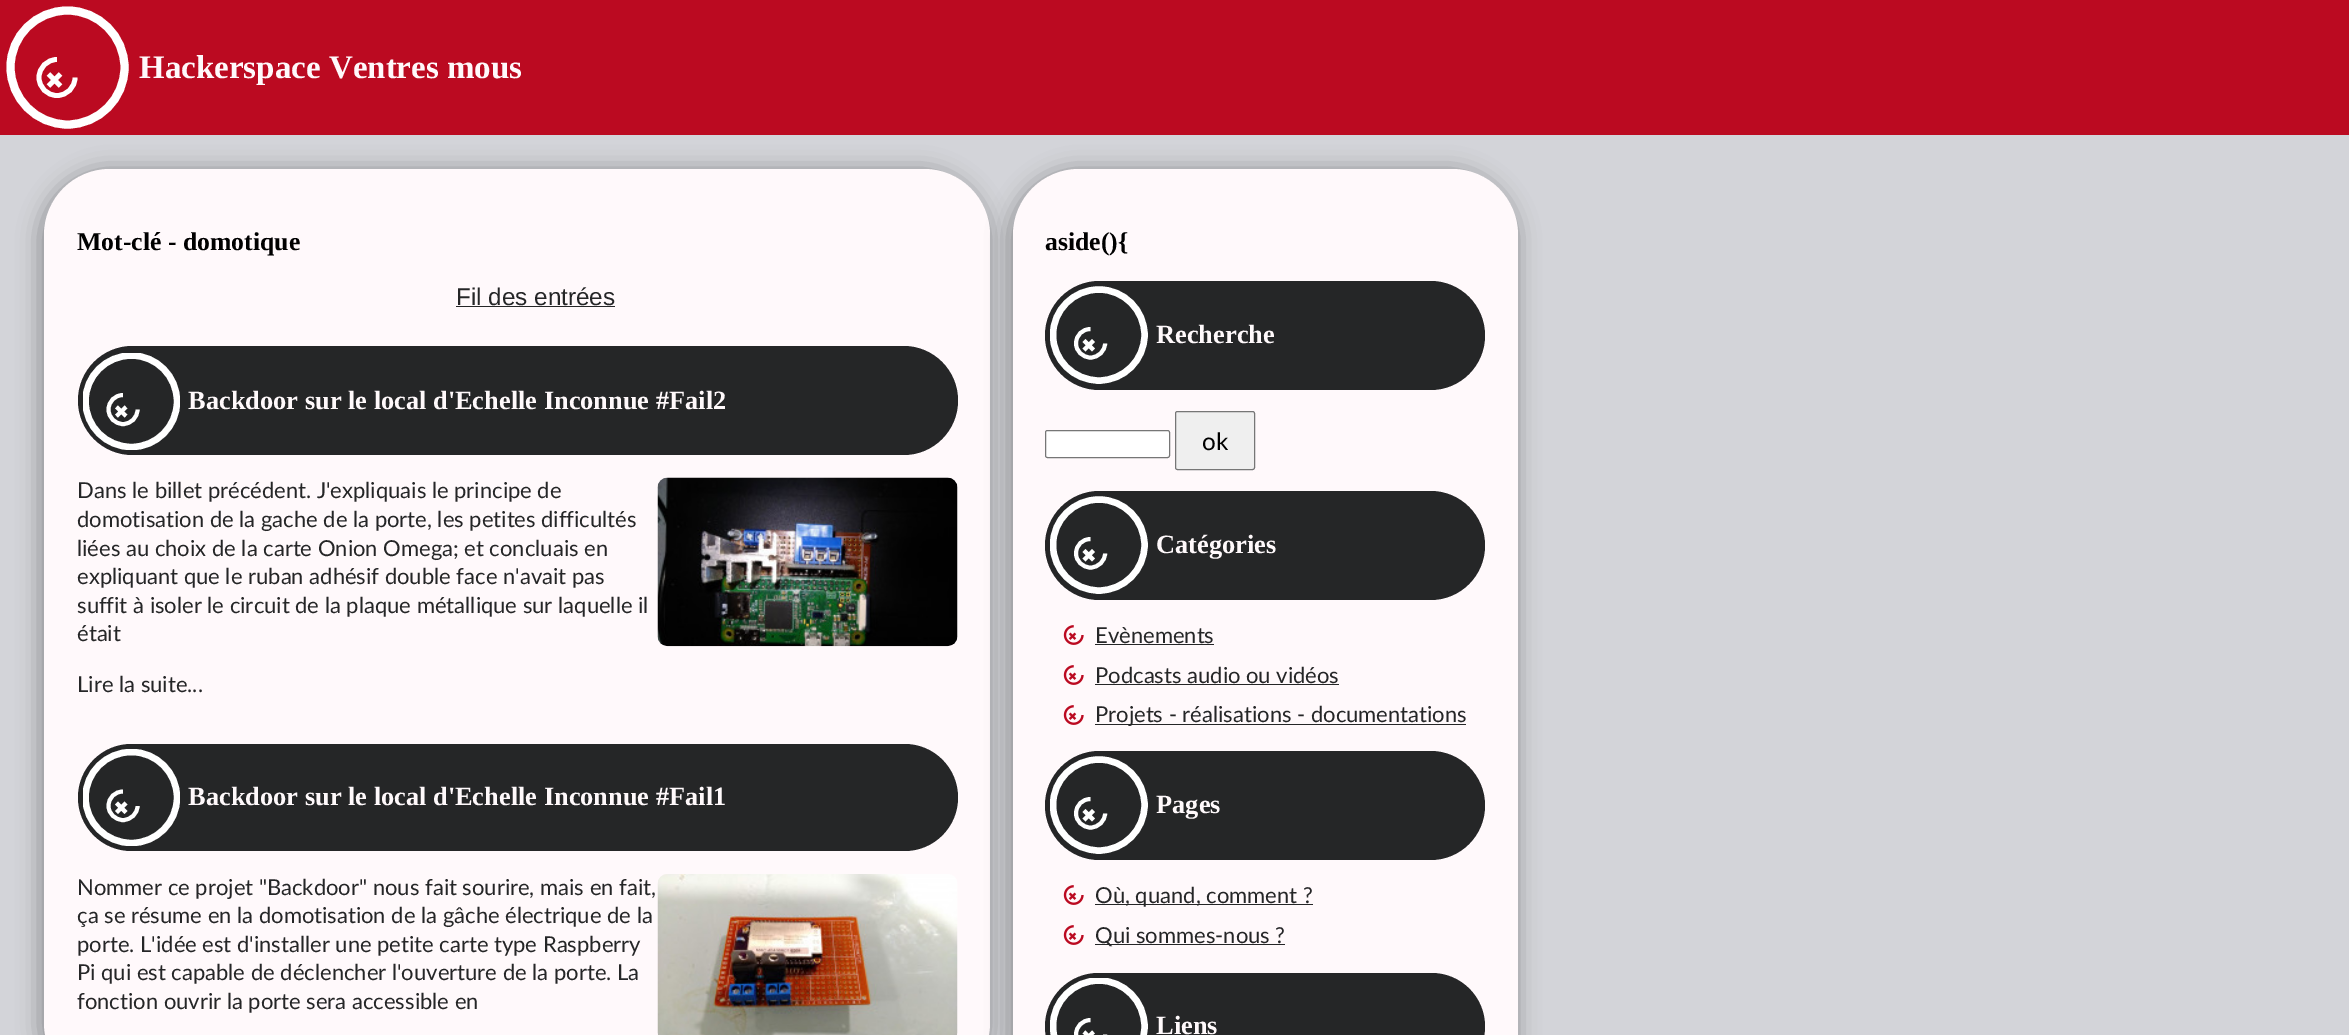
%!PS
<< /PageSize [2349 1035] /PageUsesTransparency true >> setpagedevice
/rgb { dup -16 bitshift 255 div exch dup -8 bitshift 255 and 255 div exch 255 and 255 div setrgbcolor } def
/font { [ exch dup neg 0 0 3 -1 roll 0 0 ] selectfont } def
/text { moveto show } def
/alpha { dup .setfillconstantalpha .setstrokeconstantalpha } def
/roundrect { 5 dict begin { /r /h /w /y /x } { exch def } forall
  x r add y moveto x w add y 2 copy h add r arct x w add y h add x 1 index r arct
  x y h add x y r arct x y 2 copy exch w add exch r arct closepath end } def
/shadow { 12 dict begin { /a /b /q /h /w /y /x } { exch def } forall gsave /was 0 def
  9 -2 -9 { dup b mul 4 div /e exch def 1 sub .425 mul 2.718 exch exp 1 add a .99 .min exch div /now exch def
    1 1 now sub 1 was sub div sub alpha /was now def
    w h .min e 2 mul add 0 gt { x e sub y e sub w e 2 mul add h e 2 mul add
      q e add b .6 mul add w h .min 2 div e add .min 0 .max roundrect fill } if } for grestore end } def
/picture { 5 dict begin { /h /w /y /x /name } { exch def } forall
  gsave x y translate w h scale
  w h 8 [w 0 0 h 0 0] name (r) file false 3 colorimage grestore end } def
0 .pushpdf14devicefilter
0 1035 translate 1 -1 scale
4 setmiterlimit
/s1 { /LiberationSerif-Bold 33 font 16#FFF9FB rgb } def
/s2 { /LiberationSerif-Bold 25.75 font 16#000000 rgb } def
/s3 { /LiberationSans-Regular 24.25 font 16#252627 rgb } def
/s4 { /LiberationSerif-Bold 26.4 font 16#FFF9FB rgb } def
/s5 { /Lato-Regular 22 font 16#252627 rgb } def
/s6 { /Lato-Regular 24.25 font 16#000000 rgb } def
16#D3D4D9 rgb
0 0 2349 1035 rectfill
16#BB0A21 rgb
0 0 2349 135 rectfill
16#FFFFFF rgb
8.1 setlinewidth
124.5 67.5 moveto 124.5 98.5 99 124.5 67.5 124.5 curveto 36 124.5 10.5 98.5 10.5 67 curveto 10.5 36 36 10.5 67.5 10.5 curveto 98.5 10.5 124.5 36 124.5 67.5 curveto closepath stroke
4.8 setlinewidth
75 77.5 moveto 75 87.5 67 95.5 57 95.5 curveto 47 95.5 39 87.5 39 77.5 curveto 39 67.5 47 59.5 57 59.5 curveto 48.5 86 moveto 60.5 74 lineto 48.5 74 moveto 60.5 86 lineto stroke
s1
(Hackerspace Ventres mous) 139 78 text
16#000000 rgb
39 169 951 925 69 11 0.3 shadow
16#FFF9FB rgb
44 169 946 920 66 roundrect fill
s2
(Mot-clé - domotique) 77 250 text
s3
(Fil des entrées) 456 305 text
456 306 159 1 rectfill
78 346 880 109 54.5 roundrect fill
gsave
83 353 97 97 rectclip
16#FFFFFF rgb
6.4 setlinewidth
177 401.5 moveto 177 426.5 156.5 447 131.5 447 curveto 106 447 85.5 426.5 85.5 401 curveto 85.5 376 106 355.5 131.5 355.5 curveto 156.5 355.5 177 376 177 401.5 curveto closepath stroke
grestore
16#FFFFFF rgb
3.9 setlinewidth
137.5 409.5 moveto 137.5 417.5 131 424 123 424 curveto 115 424 108.5 417.5 108.5 409.5 curveto 108.5 401.5 115 395 123 395 curveto 116.5 416 moveto 126 407 lineto 116.5 407 moveto 126 416 lineto stroke
s4
(Backdoor sur le local d'Echelle Inconnue #Fail2) 188 409 text
s5
(Dans le billet précédent. J'expliquais le principe de) 77 498 text
(domotisation de la gache de la porte, les petites difficultés) 77 527 text
(liées au choix de la carte Onion Omega; et concluais en) 77 556 text
(expliquant que le ruban adhésif double face n'avait pas) 77 584 text
(suffit à isoler le circuit de la plaque métallique sur laquelle il) 77 613 text
(était) 77 641 text
(pic1.raw) 657 477 301 170 picture
(Lire la suite...) 77 692 text
78 744 880 107 53.5 roundrect fill
gsave
83 749 97 97 rectclip
16#FFFFFF rgb
6.4 setlinewidth
177 797.5 moveto 177 822.5 156.5 843 131.5 843 curveto 106 843 85.5 822.5 85.5 797.5 curveto 85.5 772.5 106 752 131.5 752 curveto 156.5 752 177 772.5 177 797.5 curveto closepath stroke
grestore
16#FFFFFF rgb
137.5 806 moveto 137.5 813.5 131 820 123 820 curveto 115 820 108.5 813.5 108.5 806 curveto 108.5 797.5 115 791.5 123 791.5 curveto 116.5 812.5 moveto 126 803 lineto 116.5 803 moveto 126 812.5 lineto stroke
s4
(Backdoor sur le local d'Echelle Inconnue #Fail1) 188 805 text
s5
(Nommer ce projet "Backdoor" nous fait sourire, mais en fait,) 77 895 text
(ça se résume en la domotisation de la gâche électrique de la) 77 923 text
(porte. L'idée est d'installer une petite carte type Raspberry) 77 952 text
(Pi qui est capable de déclencher l'ouverture de la porte. La) 77 980 text
(fonction ouvrir la porte sera accessible en) 77 1009 text
(pic2.raw) 657 874 301 161 picture
16#000000 rgb
1008 169 510 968 69 11 0.3 shadow
16#FFF9FB rgb
1013 169 505 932 66 roundrect fill
s2
(aside\(\){) 1045 250 text
16#252627 rgb
1045 281 440 109 54.5 roundrect fill
gsave
1050 286 98 98 rectclip
16#FFFFFF rgb
6.4 setlinewidth
1144.5 335 moveto 1144.5 360 1124 380.5 1099 380.5 curveto 1073.5 380.5 1053 360 1053 335 curveto 1053 310 1073.5 289.5 1099 289.5 curveto 1124 289.5 1144.5 310 1144.5 335 curveto closepath stroke
grestore
16#FFFFFF rgb
1105 343.5 moveto 1105 351 1098.5 357.5 1090.5 357.5 curveto 1082.5 357.5 1076 351 1076 343.5 curveto 1076 335 1082.5 329 1090.5 329 curveto 1084 350 moveto 1093.5 340.5 lineto 1084 340.5 moveto 1093.5 350 lineto stroke
s4
(Recherche) 1156 343 text
16#FFFFFF rgb
1045.5 430.5 124 27 2 roundrect gsave fill grestore
16#767676 rgb
1 setlinewidth
stroke
16#EFEFEF rgb
1175.5 411.5 79 58 2 roundrect gsave fill grestore
16#767676 rgb
stroke
s6
(ok) 1202 450 text
16#252627 rgb
1045 491 440 109 54.5 roundrect fill
gsave
1050 496 98 99 rectclip
16#FFFFFF rgb
6.4 setlinewidth
1144.5 545 moveto 1144.5 570 1124 590.5 1099 590.5 curveto 1073.5 590.5 1053 570 1053 545 curveto 1053 520 1073.5 499.5 1099 499.5 curveto 1124 499.5 1144.5 520 1144.5 545 curveto closepath stroke
grestore
16#FFFFFF rgb
3.9 setlinewidth
1105 553.5 moveto 1105 561 1098.5 567.5 1090.5 567.5 curveto 1082.5 567.5 1076 561 1076 553.5 curveto 1076 545 1082.5 539 1090.5 539 curveto 1084 560 moveto 1093.5 550.5 lineto 1084 550.5 moveto 1093.5 560 lineto stroke
s4
(Catégories) 1156 553 text
(pic3.raw) 1063 625 21 20 picture
s5
(Evènements) 1095 643 text
1095 644 119 1 rectfill
(pic3.raw) 1063 665 21 20 picture
(Podcasts audio ou vidéos) 1095 683 text
1095 684 244 1 rectfill
(pic3.raw) 1063 705 21 20 picture
1095 724 371 1 rectfill
(Projets - réalisations - documentations) 1095 722 text
1045 751 440 109 54.5 roundrect fill
gsave
1050 756 98 99 rectclip
16#FFFFFF rgb
6.4 setlinewidth
1144.5 805 moveto 1144.5 830 1124 850.5 1099 850.5 curveto 1073.5 850.5 1053 830 1053 805 curveto 1053 780 1073.5 759.5 1099 759.5 curveto 1124 759.5 1144.5 780 1144.5 805 curveto closepath stroke
grestore
16#FFFFFF rgb
1105 813.5 moveto 1105 821 1098.5 827.5 1090.5 827.5 curveto 1082.5 827.5 1076 821 1076 813.5 curveto 1076 805 1082.5 799 1090.5 799 curveto 1084 820 moveto 1093.5 810.5 lineto 1084 810.5 moveto 1093.5 820 lineto stroke
s4
(Pages) 1156 813 text
(pic3.raw) 1063 885 21 20 picture
16#252627 rgb
1095 904 218 1 rectfill
s5
(Où, quand, comment ?) 1095 903 text
(pic3.raw) 1063 925 21 20 picture
1095 944 190 1 rectfill
(Qui sommes-nous ?) 1095 943 text
1045 973 440 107 53.5 roundrect fill
gsave
1050 978 98 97 rectclip
16#FFFFFF rgb
6.4 setlinewidth
1144.5 1026.5 moveto 1144.5 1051.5 1124 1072 1099 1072 curveto 1073.5 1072 1053 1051.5 1053 1026 curveto 1053 1001 1073.5 980.5 1099 980.5 curveto 1124 980.5 1144.5 1001 1144.5 1026.5 curveto closepath stroke
grestore
16#FFFFFF rgb
1105 1034.5 moveto 1105 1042.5 1098.5 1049 1090.5 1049 curveto 1082.5 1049 1076 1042.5 1076 1034.5 curveto 1076 1026.5 1082.5 1020 1090.5 1020 curveto 1084 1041 moveto 1093.5 1032 lineto 1084 1032 moveto 1093.5 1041 lineto stroke
s4
(Liens) 1156 1034 text
.poppdf14devicefilter showpage
